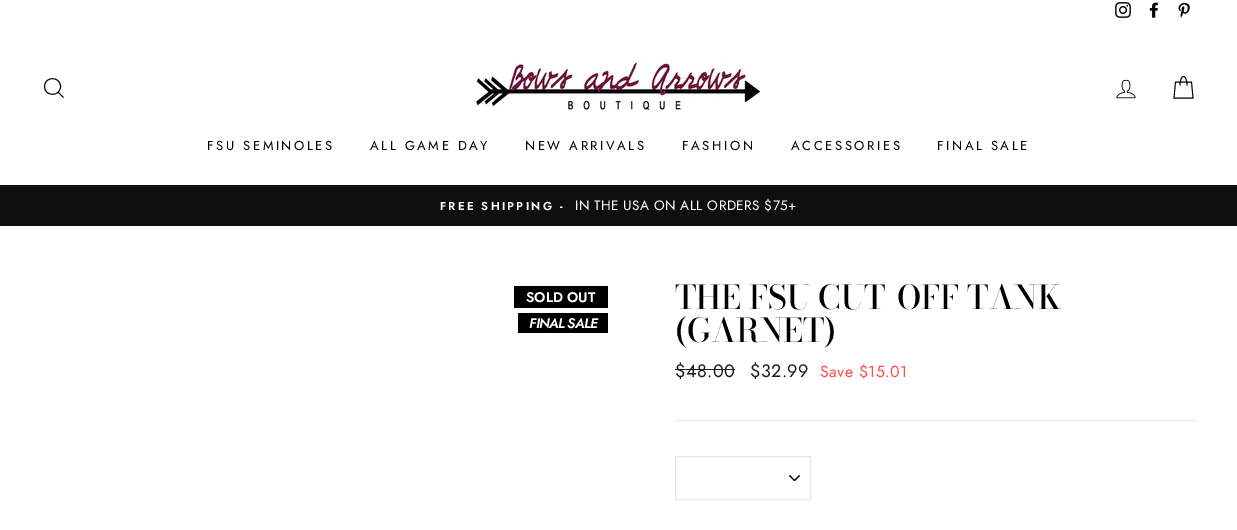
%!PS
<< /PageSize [1237 530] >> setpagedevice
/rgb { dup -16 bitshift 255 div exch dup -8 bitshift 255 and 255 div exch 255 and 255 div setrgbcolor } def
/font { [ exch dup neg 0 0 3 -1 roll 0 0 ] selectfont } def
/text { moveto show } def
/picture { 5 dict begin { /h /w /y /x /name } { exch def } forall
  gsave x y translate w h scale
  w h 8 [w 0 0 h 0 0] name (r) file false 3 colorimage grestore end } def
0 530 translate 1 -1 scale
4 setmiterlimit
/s1 { /Jost-SemiBold 14 font 16#FFFFFF rgb } def
/s2 { /BodoniModa-Medium 32.75 font 16#000000 rgb } def
16#FFFFFF rgb
0 0 1237 530 rectfill
(pic1.raw) 1115 2 16 16 picture
(pic2.raw) 1149 2 9 16 picture
(pic3.raw) 1178 2 12 16 picture
16#000000 rgb
0.9 setlinewidth
60.5 86.5 moveto 60.5 97 44.5 97 44.5 86.5 curveto 44.5 76 60.5 76 60.5 86.5 curveto closepath 63.5 97.5 moveto 58.5 92.5 lineto stroke
(pic4.raw) 476 61 284 52 picture
(pic5.raw) 1116 79 20 20 picture
1180 85.5 moveto 1180 73.5 1187 73.5 1187 85.5 curveto 1175.5 82 moveto 1191.5 82 lineto 1193 98 lineto 1174 98 lineto closepath stroke
/Jost-Regular 13 font
207 150 moveto 2.6 0 (FSU SEMINOLES) ashow
370 150 moveto 2.6 0 (ALL GAME DAY) ashow
525 150 moveto 2.6 0 (NEW ARRIVALS) ashow
682 150 moveto 2.6 0 (FASHION) ashow
791 150 moveto 2.6 0 (ACCESSORIES) ashow
937 150 moveto 2.6 0 (FINAL SALE) ashow
16#0F0F0F rgb
0 185 1237 41 rectfill
/Jost-SemiBold 11.5 font
16#FFFFFF rgb
440 210 moveto 2.25 0 (FREE SHIPPING -) ashow
/Jost-Regular 13.6 font
575 210 moveto 0.4 0 (IN THE USA ON ALL ORDERS $75+) ashow
16#000000 rgb
514 286 94 22 rectfill
s1
(SOLD OUT) 526 302 text
16#000000 rgb
518 313 90 20 rectfill
/Jost-SemiBoldItalic 14 font
16#FFFFFF rgb
529 328 moveto -0.75 0 (FINAL SALE) ashow
s2
(THE FSU CUT-OFF TANK) 675 309 text
(\(GARNET\)) 675 342 text
/Jost-Regular 18 font
16#1C1D1D rgb
675 377 moveto 0.4 0 ($48.00) ashow
675 369 60 1 rectfill
750 377 moveto 0.4 0 ($32.99) ashow
/Jost-Regular 16 font
16#FF4E4E rgb
820 377 moveto 0.4 0 (Save $15.01) ashow
16#E8E8E1 rgb
675 420 522 1 rectfill
(pic6.raw) 789 475 11 6 picture
1 setlinewidth
675.5 456.5 135 43 rectstroke
showpage
